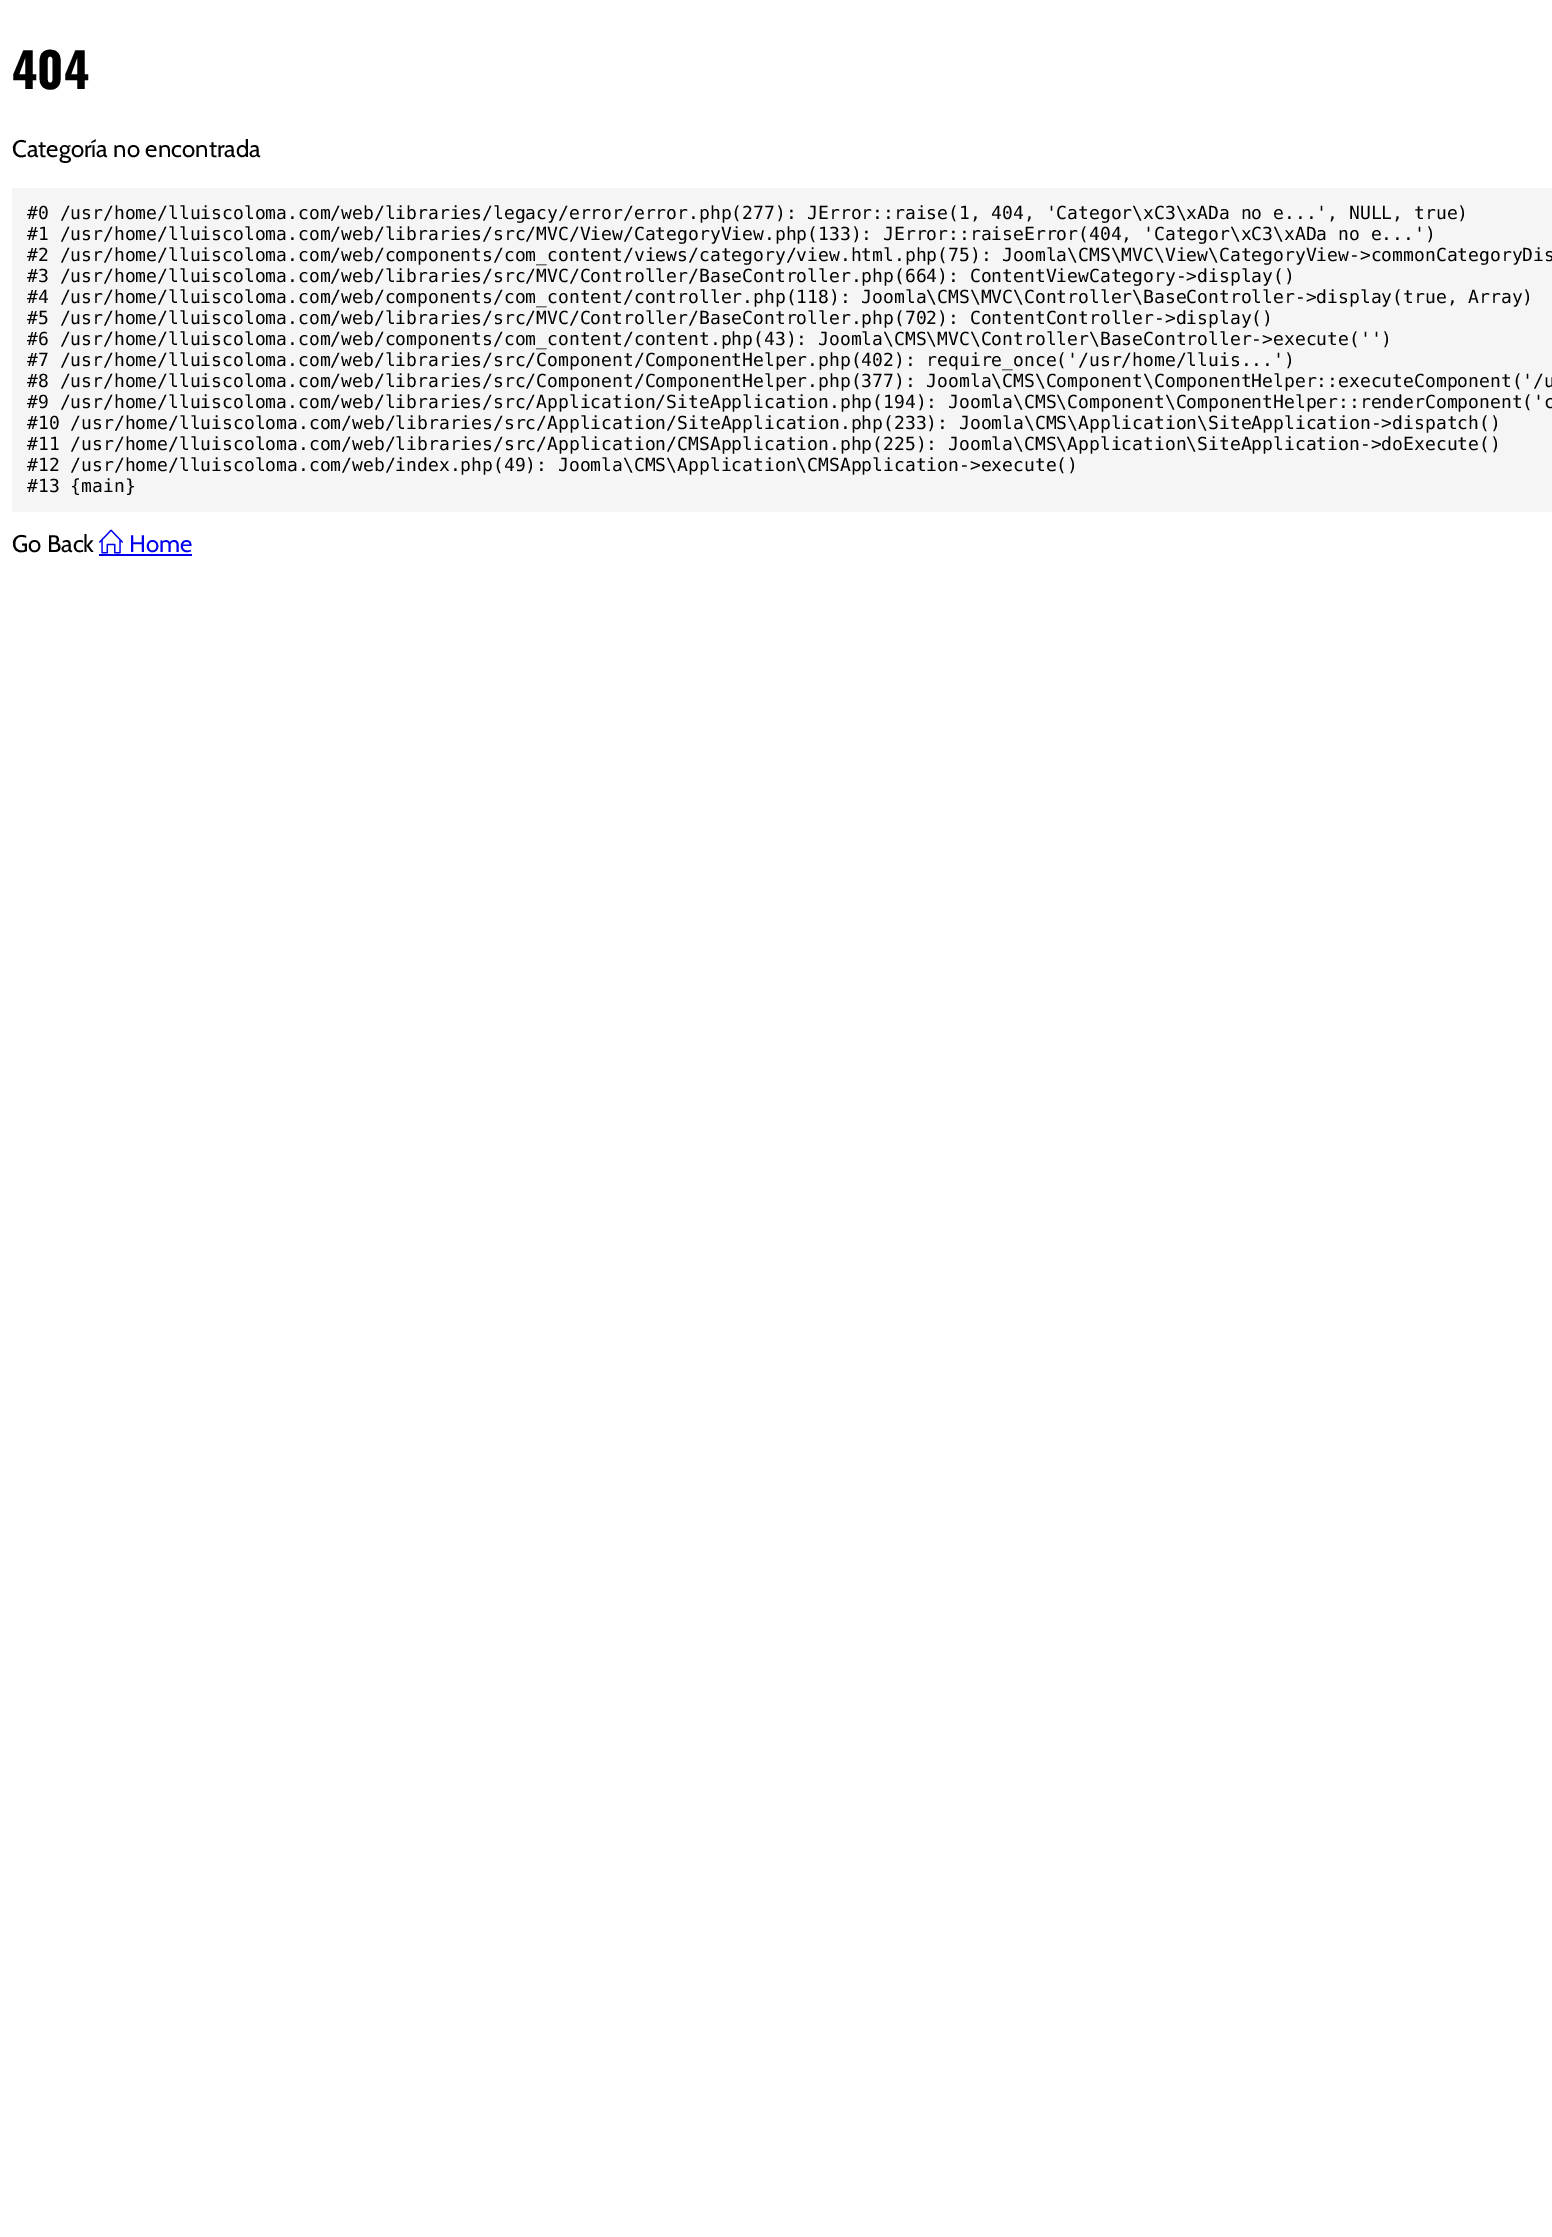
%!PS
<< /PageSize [1552 2237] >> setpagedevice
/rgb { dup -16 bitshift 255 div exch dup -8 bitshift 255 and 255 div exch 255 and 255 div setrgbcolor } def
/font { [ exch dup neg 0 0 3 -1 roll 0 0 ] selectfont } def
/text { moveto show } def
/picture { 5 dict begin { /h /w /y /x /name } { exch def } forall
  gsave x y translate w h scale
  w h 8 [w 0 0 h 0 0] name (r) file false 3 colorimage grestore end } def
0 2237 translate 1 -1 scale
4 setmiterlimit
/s1 { /Oswald-Bold 48 font 16#000000 rgb } def
/s2 { /Cabin-Regular 24 font 16#000000 rgb } def
/s3 { /DejaVuSansMono-Regular 18 font 16#000000 rgb } def
/s4 { /Cabin-Regular 24 font 16#0000EE rgb } def
16#FFFFFF rgb
0 0 1552 2237 rectfill
s1
(404) 12 89 text
s2
(Categoría no encontrada) 12 157 text
16#F5F5F5 rgb
12 188 1540 324 rectfill
s3
(#0 /usr/home/lluiscoloma.com/web/libraries/legacy/error/error.php\(277\): JError::raise\(1, 404, 'Categor\\xC3\\xADa no e...', NULL, true\)) 27 219 text
(#1 /usr/home/lluiscoloma.com/web/libraries/src/MVC/View/CategoryView.php\(133\): JError::raiseError\(404, 'Categor\\xC3\\xADa no e...'\)) 27 240 text
(#2 /usr/home/lluiscoloma.com/web/components/com_content/views/category/view.html.php\(75\): Joomla\\CMS\\MVC\\View\\CategoryView->commonCategoryDis) 27 261 text
(#3 /usr/home/lluiscoloma.com/web/libraries/src/MVC/Controller/BaseController.php\(664\): ContentViewCategory->display\(\)) 27 282 text
(#4 /usr/home/lluiscoloma.com/web/components/com_content/controller.php\(118\): Joomla\\CMS\\MVC\\Controller\\BaseController->display\(true, Array\)) 27 303 text
(#5 /usr/home/lluiscoloma.com/web/libraries/src/MVC/Controller/BaseController.php\(702\): ContentController->display\(\)) 27 324 text
(#6 /usr/home/lluiscoloma.com/web/components/com_content/content.php\(43\): Joomla\\CMS\\MVC\\Controller\\BaseController->execute\(''\)) 27 345 text
(#7 /usr/home/lluiscoloma.com/web/libraries/src/Component/ComponentHelper.php\(402\): require_once\('/usr/home/lluis...'\)) 27 366 text
(#8 /usr/home/lluiscoloma.com/web/libraries/src/Component/ComponentHelper.php\(377\): Joomla\\CMS\\Component\\ComponentHelper::executeComponent\('/u) 27 387 text
(#9 /usr/home/lluiscoloma.com/web/libraries/src/Application/SiteApplication.php\(194\): Joomla\\CMS\\Component\\ComponentHelper::renderComponent\('c) 27 408 text
(#10 /usr/home/lluiscoloma.com/web/libraries/src/Application/SiteApplication.php\(233\): Joomla\\CMS\\Application\\SiteApplication->dispatch\(\)) 27 429 text
(#11 /usr/home/lluiscoloma.com/web/libraries/src/Application/CMSApplication.php\(225\): Joomla\\CMS\\Application\\SiteApplication->doExecute\(\)) 27 450 text
(#12 /usr/home/lluiscoloma.com/web/index.php\(49\): Joomla\\CMS\\Application\\CMSApplication->execute\(\)) 27 471 text
(#13 {main}) 27 492 text
s2
(Go Back) 12 552 text
(pic1.raw) 99 529 24 25 picture
s4
(Home) 129 552 text
99 554 93 2 rectfill
showpage
